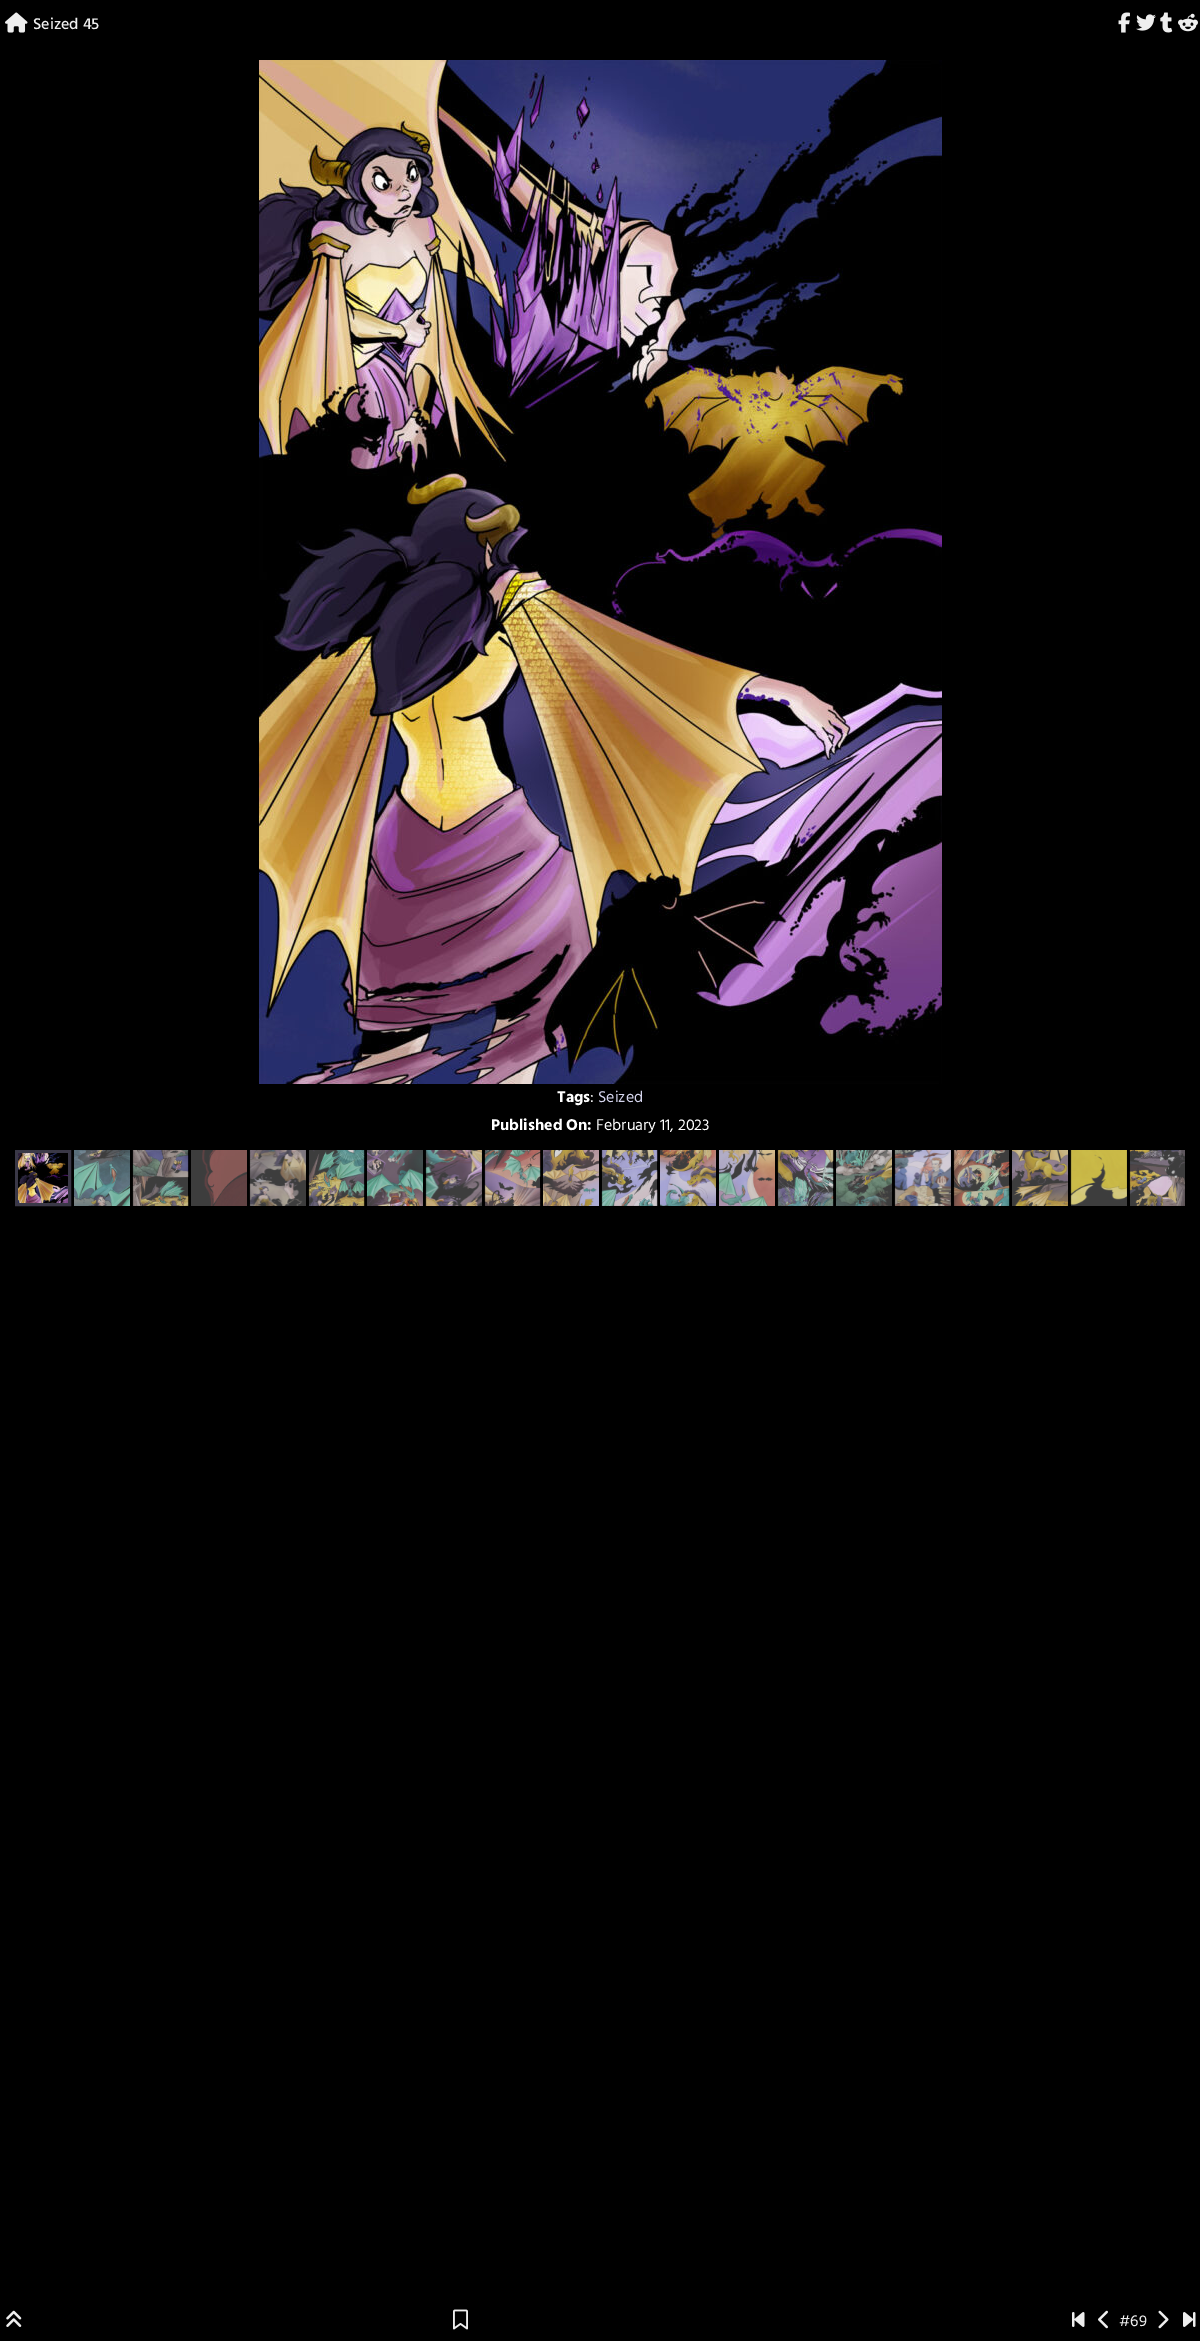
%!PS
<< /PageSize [1200 2341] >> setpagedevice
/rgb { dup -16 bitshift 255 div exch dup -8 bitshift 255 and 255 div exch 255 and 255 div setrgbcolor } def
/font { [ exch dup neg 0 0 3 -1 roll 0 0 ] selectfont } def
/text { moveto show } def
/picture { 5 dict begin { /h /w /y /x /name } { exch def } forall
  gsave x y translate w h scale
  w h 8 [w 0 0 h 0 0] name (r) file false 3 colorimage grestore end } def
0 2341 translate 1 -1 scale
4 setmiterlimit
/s1 { /Hind-Medium 16 font 16#EEEEEE rgb } def
/s2 { /Hind-Bold 16 font 16#FFFFFF rgb } def
/s3 { /Hind-Regular 16 font 16#FFFFFF rgb } def
/s4 { /Hind-Regular 16 font 16#D5D5ED rgb } def
/s5 { /Hind-Regular 16 font 16#EEEEEE rgb } def
16#000000 rgb
0 0 1200 2341 rectfill
16#3D3D3D rgb
1071 1150 56 56 rectfill
191 1150 11 56 rectfill
(pic1.raw) 5 12 23 21 picture
s1
(Seized 45) 33 29 text
(pic2.raw) 1118 12 12 21 picture
(pic3.raw) 1136 14 20 17 picture
(pic4.raw) 1160 12 13 21 picture
(pic5.raw) 1178 13 20 19 picture
(pic6.raw) 259 60 683 1024 picture
s2
(Tags) 557 1102 text
s3
(:) 590 1102 text
s4
(Seized) 598 1102 text
s2
(Published On:) 491 1130 text
s3
(February 11, 2023) 596 1130 text
16#3A3847 rgb
3 setlinewidth
16.5 1151.5 53 53 rectstroke
(pic7.raw) 18 1153 50 50 picture
(pic8.raw) 74 1150 56 56 picture
(pic9.raw) 132 1150 57 56 picture
(pic10.raw) 202 1150 45 56 picture
(pic11.raw) 249 1150 57 56 picture
(pic12.raw) 308 1150 57 56 picture
(pic13.raw) 367 1150 56 56 picture
(pic14.raw) 425 1150 57 56 picture
(pic15.raw) 484 1150 57 56 picture
(pic16.raw) 543 1150 56 56 picture
(pic17.raw) 601 1150 57 56 picture
(pic18.raw) 660 1150 56 56 picture
(pic19.raw) 719 1150 56 56 picture
(pic20.raw) 777 1150 57 56 picture
(pic21.raw) 836 1150 56 56 picture
(pic22.raw) 894 1150 57 56 picture
(pic23.raw) 953 1150 57 56 picture
(pic24.raw) 1012 1150 56 56 picture
(pic25.raw) 1070 1150 57 55 picture
(pic26.raw) 1129 1150 56 56 picture
(pic27.raw) 6 2310 16 17 picture
(pic28.raw) 453 2309 15 21 picture
(pic29.raw) 1072 2312 13 15 picture
(pic30.raw) 1098 2310 10 19 picture
s5
(#69) 1119 2326 text
(pic31.raw) 1158 2310 11 19 picture
(pic32.raw) 1183 2312 13 15 picture
showpage
